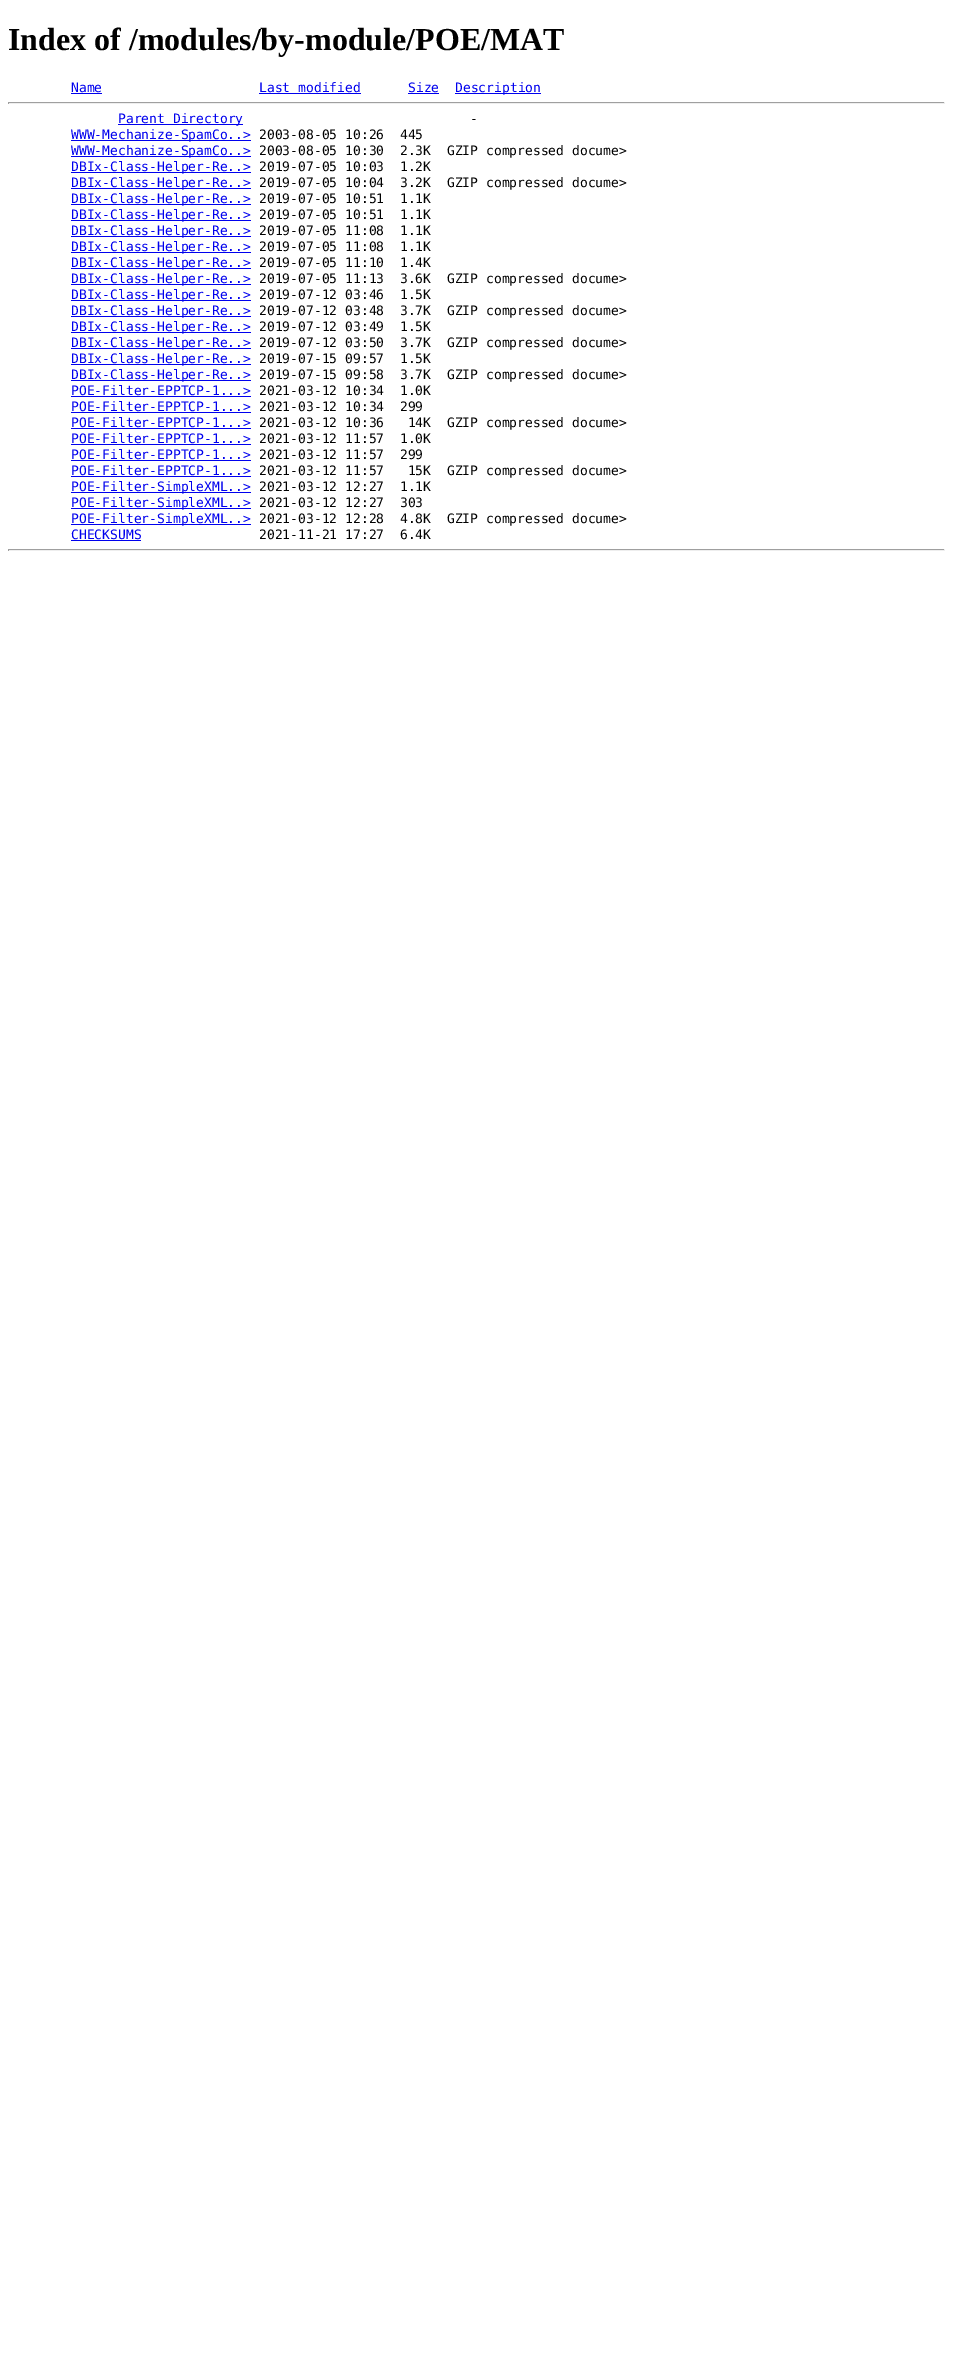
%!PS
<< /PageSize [953 2365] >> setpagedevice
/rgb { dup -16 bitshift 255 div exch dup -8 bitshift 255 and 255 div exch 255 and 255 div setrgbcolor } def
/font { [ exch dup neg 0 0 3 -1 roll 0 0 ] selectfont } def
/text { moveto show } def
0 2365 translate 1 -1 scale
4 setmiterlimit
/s1 { /LiberationSerif-Bold 32 font 16#000000 rgb } def
/s2 { /DejaVuSansMono-Regular 13 font 16#0000EE rgb } def
/s3 { /DejaVuSansMono-Regular 13 font 16#000000 rgb } def
16#FFFFFF rgb
0 0 953 2365 rectfill
s1
(Index of /modules/by-module/POE/MAT) 8 50 text
s2
(Name) 71 92 text
71 93 31 1 rectfill
(Last modified) 259 92 text
259 93 102 1 rectfill
(Size) 408 92 text
408 93 31 1 rectfill
455 93 86 1 rectfill
(Description) 455 92 text
16#9F9F9F rgb
8 102 937 1 rectfill
16#EEEEEE rgb
944 102 1 2 rectfill
8 103 937 1 rectfill
16#9F9F9F rgb
8 102 1 2 rectfill
16#0000EE rgb
118 124 125 1 rectfill
(Parent Directory) 118 123 text
s3
(-) 470 123 text
16#0000EE rgb
71 140 180 1 rectfill
(WWW-Mechanize-SpamCo..>) 71 139 text
s3
(2003-08-05 10:26  445) 259 139 text
16#0000EE rgb
71 156 180 1 rectfill
(WWW-Mechanize-SpamCo..>) 71 155 text
s3
(2003-08-05 10:30  2.3K  GZIP compressed docume>) 259 155 text
16#0000EE rgb
71 172 180 1 rectfill
(DBIx-Class-Helper-Re..>) 71 171 text
s3
(2019-07-05 10:03  1.2K) 259 171 text
16#0000EE rgb
71 188 180 1 rectfill
(DBIx-Class-Helper-Re..>) 71 187 text
s3
(2019-07-05 10:04  3.2K  GZIP compressed docume>) 259 187 text
16#0000EE rgb
71 204 180 1 rectfill
(DBIx-Class-Helper-Re..>) 71 203 text
s3
(2019-07-05 10:51  1.1K) 259 203 text
16#0000EE rgb
71 220 180 1 rectfill
(DBIx-Class-Helper-Re..>) 71 219 text
s3
(2019-07-05 10:51  1.1K) 259 219 text
16#0000EE rgb
71 236 180 1 rectfill
(DBIx-Class-Helper-Re..>) 71 235 text
s3
(2019-07-05 11:08  1.1K) 259 235 text
16#0000EE rgb
71 252 180 1 rectfill
(DBIx-Class-Helper-Re..>) 71 251 text
s3
(2019-07-05 11:08  1.1K) 259 251 text
16#0000EE rgb
71 268 180 1 rectfill
(DBIx-Class-Helper-Re..>) 71 267 text
s3
(2019-07-05 11:10  1.4K) 259 267 text
16#0000EE rgb
71 284 180 1 rectfill
(DBIx-Class-Helper-Re..>) 71 283 text
s3
(2019-07-05 11:13  3.6K  GZIP compressed docume>) 259 283 text
16#0000EE rgb
71 300 180 1 rectfill
(DBIx-Class-Helper-Re..>) 71 299 text
s3
(2019-07-12 03:46  1.5K) 259 299 text
16#0000EE rgb
71 316 180 1 rectfill
(DBIx-Class-Helper-Re..>) 71 315 text
s3
(2019-07-12 03:48  3.7K  GZIP compressed docume>) 259 315 text
16#0000EE rgb
71 332 180 1 rectfill
(DBIx-Class-Helper-Re..>) 71 331 text
s3
(2019-07-12 03:49  1.5K) 259 331 text
16#0000EE rgb
71 348 180 1 rectfill
(DBIx-Class-Helper-Re..>) 71 347 text
s3
(2019-07-12 03:50  3.7K  GZIP compressed docume>) 259 347 text
16#0000EE rgb
71 364 180 1 rectfill
(DBIx-Class-Helper-Re..>) 71 363 text
s3
(2019-07-15 09:57  1.5K) 259 363 text
16#0000EE rgb
71 380 180 1 rectfill
(DBIx-Class-Helper-Re..>) 71 379 text
s3
(2019-07-15 09:58  3.7K  GZIP compressed docume>) 259 379 text
s2
(POE-Filter-EPPTCP-1...>) 71 395 text
71 396 180 1 rectfill
s3
(2021-03-12 10:34  1.0K) 259 395 text
s2
(POE-Filter-EPPTCP-1...>) 71 411 text
71 412 180 1 rectfill
s3
(2021-03-12 10:34  299) 259 411 text
s2
(POE-Filter-EPPTCP-1...>) 71 427 text
71 428 180 1 rectfill
s3
(2021-03-12 10:36   14K  GZIP compressed docume>) 259 427 text
s2
(POE-Filter-EPPTCP-1...>) 71 443 text
71 444 180 1 rectfill
s3
(2021-03-12 11:57  1.0K) 259 443 text
s2
(POE-Filter-EPPTCP-1...>) 71 459 text
71 460 180 1 rectfill
s3
(2021-03-12 11:57  299) 259 459 text
s2
(POE-Filter-EPPTCP-1...>) 71 475 text
71 476 180 1 rectfill
s3
(2021-03-12 11:57   15K  GZIP compressed docume>) 259 475 text
16#0000EE rgb
71 492 180 1 rectfill
(POE-Filter-SimpleXML..>) 71 491 text
s3
(2021-03-12 12:27  1.1K) 259 491 text
16#0000EE rgb
71 508 180 1 rectfill
(POE-Filter-SimpleXML..>) 71 507 text
s3
(2021-03-12 12:27  303) 259 507 text
16#0000EE rgb
71 524 180 1 rectfill
(POE-Filter-SimpleXML..>) 71 523 text
s3
(2021-03-12 12:28  4.8K  GZIP compressed docume>) 259 523 text
s2
(CHECKSUMS) 71 539 text
71 540 70 1 rectfill
s3
(2021-11-21 17:27  6.4K) 259 539 text
16#9F9F9F rgb
8 549 937 1 rectfill
16#EEEEEE rgb
944 549 1 2 rectfill
8 550 937 1 rectfill
16#9F9F9F rgb
8 549 1 2 rectfill
showpage
